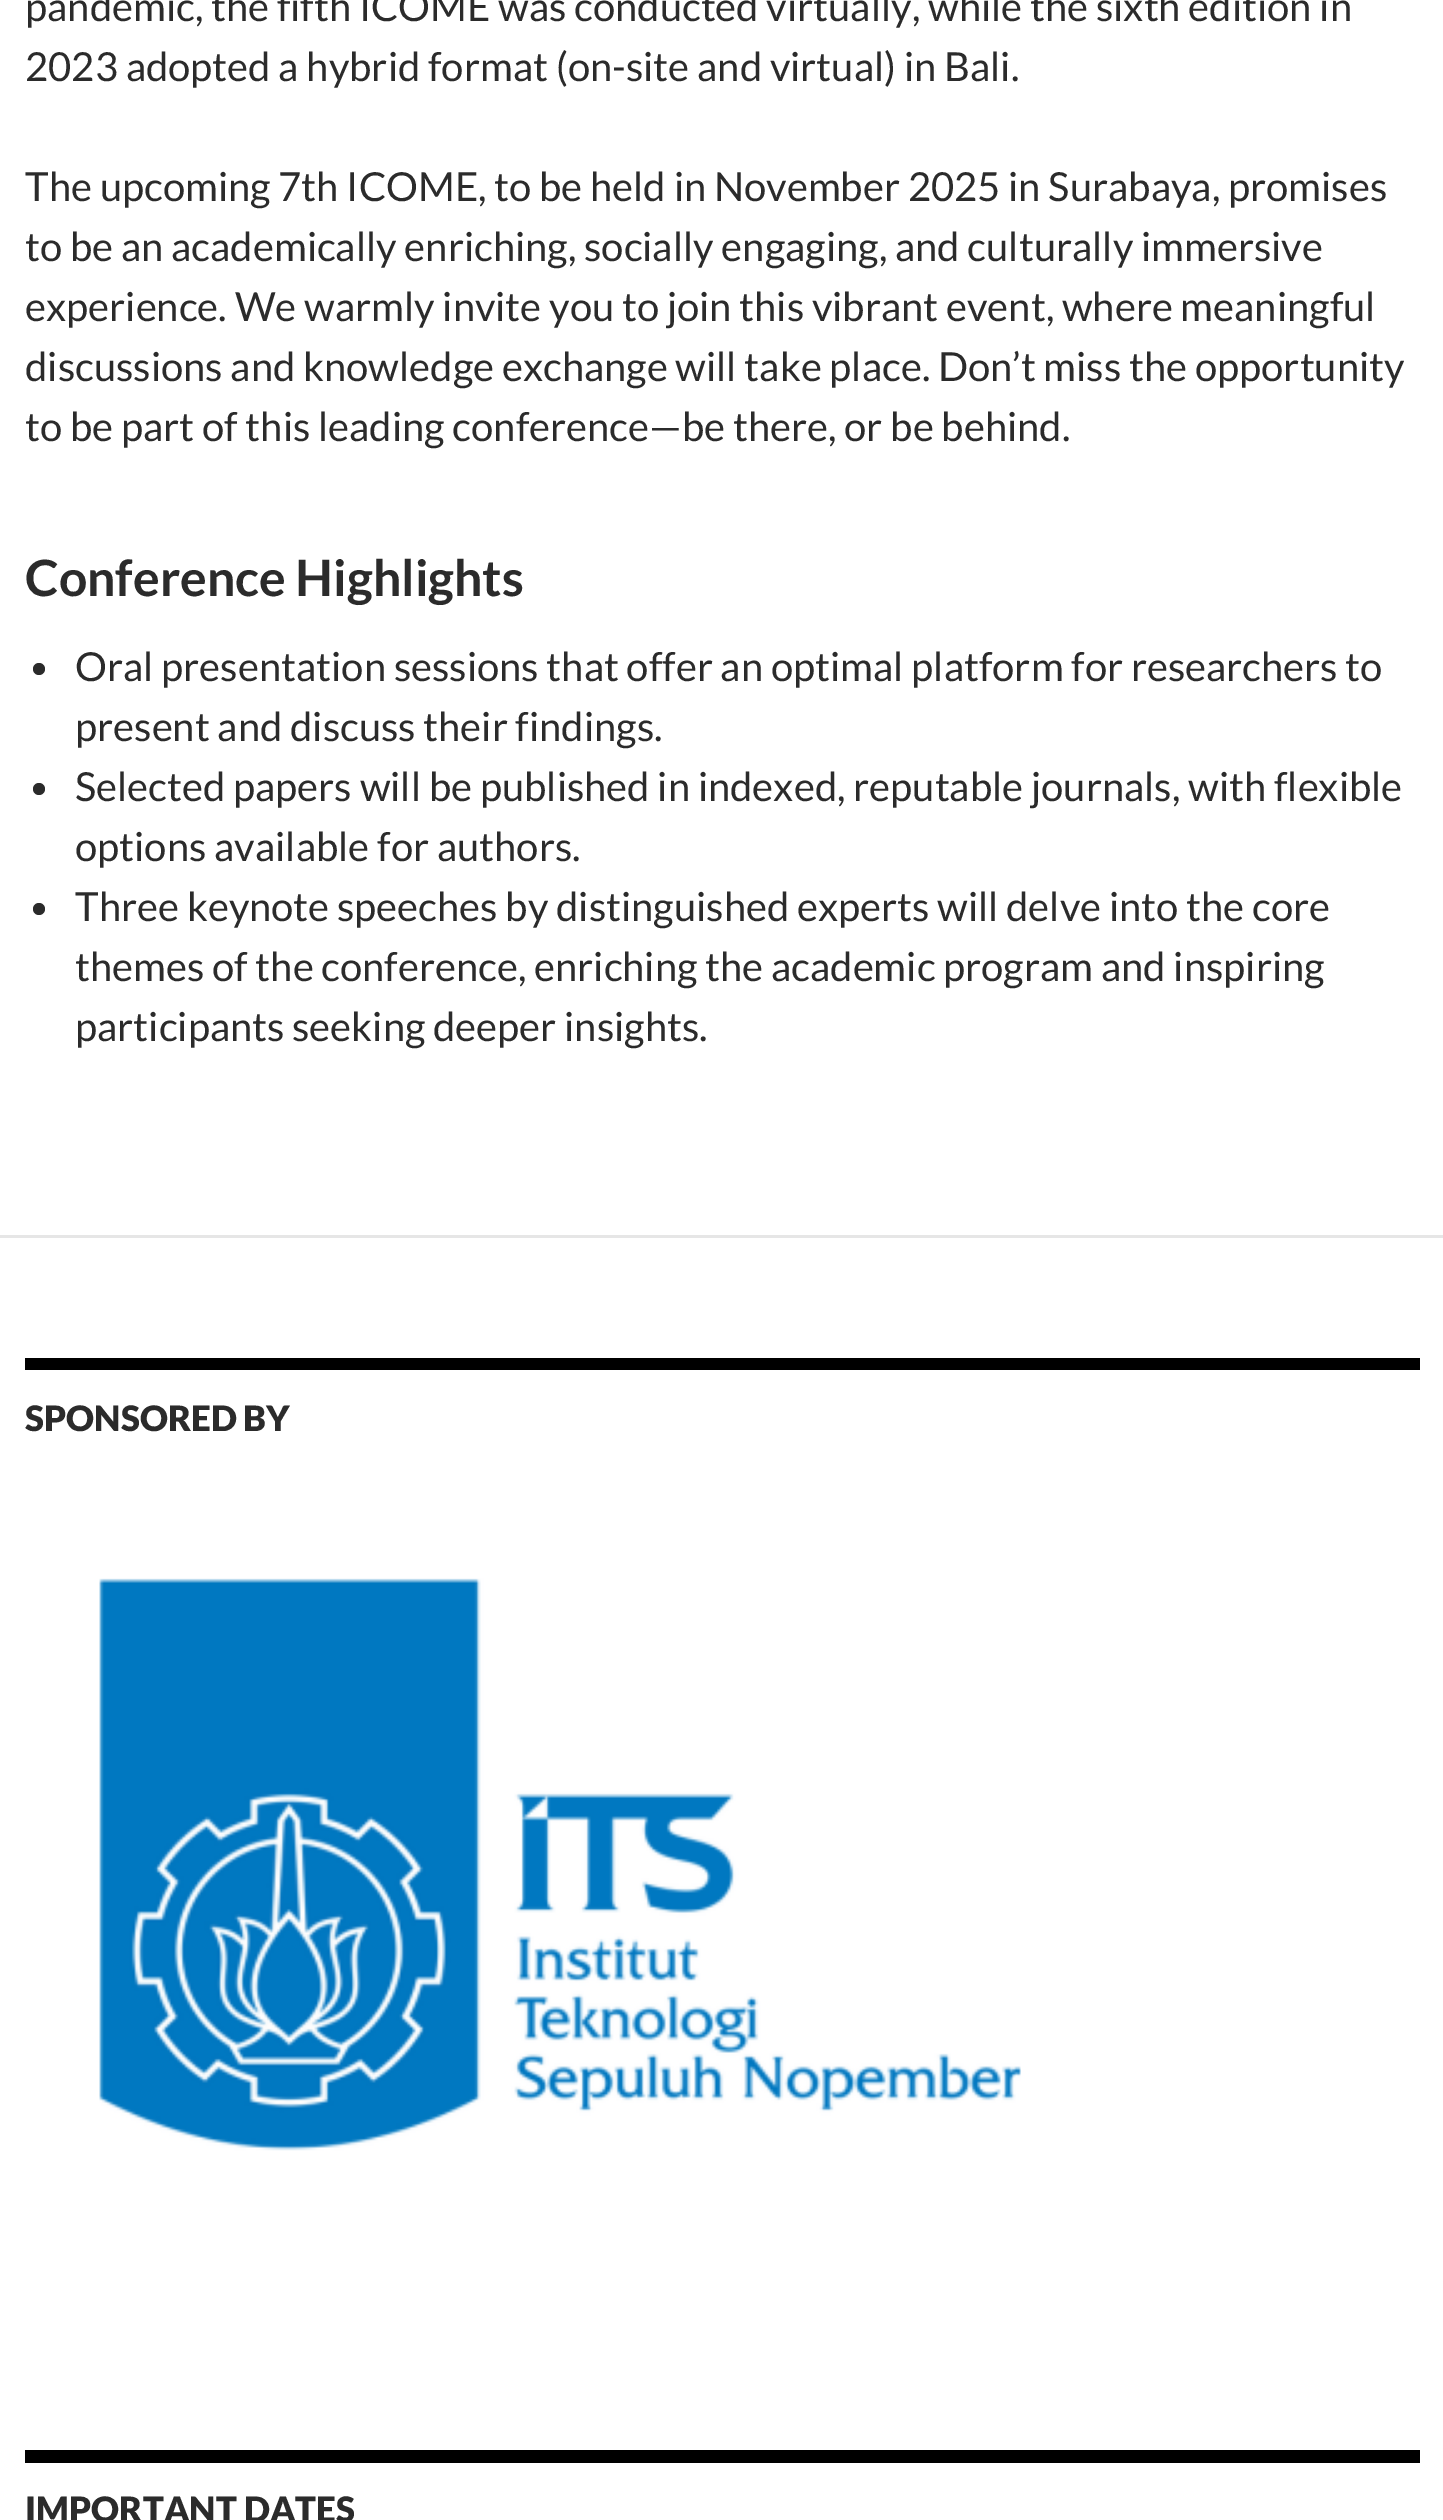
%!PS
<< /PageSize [1443 2520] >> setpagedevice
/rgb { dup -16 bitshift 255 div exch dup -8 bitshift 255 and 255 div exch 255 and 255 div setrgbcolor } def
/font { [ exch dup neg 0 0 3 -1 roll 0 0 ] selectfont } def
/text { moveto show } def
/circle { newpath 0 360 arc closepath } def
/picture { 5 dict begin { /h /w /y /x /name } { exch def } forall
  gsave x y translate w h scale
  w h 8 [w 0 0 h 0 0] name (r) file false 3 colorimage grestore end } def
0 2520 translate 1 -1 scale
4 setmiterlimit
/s1 { /Lato-Regular 40 font 16#2B2B2B rgb } def
/s2 { /Lato-Bold 50 font 16#2B2B2B rgb } def
/s3 { /Lato-Black 35 font 16#2B2B2B rgb } def
16#FFFFFF rgb
0 0 1443 2520 rectfill
s1
(pandemic, the fifth ICOME was conducted virtually, while the sixth edition in) 25 21 text
(2023 adopted a hybrid format \(on-site and virtual\) in Bali.) 25 81 text
(The upcoming 7th ICOME, to be held in November 2025 in Surabaya, promises) 25 201 text
(to be an academically enriching, socially engaging, and culturally immersive) 25 261 text
(experience. We warmly invite you to join this vibrant event, where meaningful) 25 321 text
(discussions and knowledge exchange will take place. Don’t miss the opportunity) 25 381 text
(to be part of this leading conference—be there, or be behind.) 25 441 text
s2
(Conference Highlights) 25 596 text
39 669 6 circle fill
s1
(Oral presentation sessions that offer an optimal platform for researchers to) 75 681 text
(present and discuss their findings.) 75 741 text
39 789 6 circle fill
(Selected papers will be published in indexed, reputable journals, with flexible) 75 801 text
(options available for authors.) 75 861 text
39 909 6 circle fill
(Three keynote speeches by distinguished experts will delve into the core) 75 921 text
(themes of the conference, enriching the academic program and inspiring) 75 981 text
(participants seeking deeper insights.) 75 1041 text
16#E6E6E6 rgb
0 1235 1443 3 rectfill
16#000000 rgb
25 1358 1395 12 rectfill
s3
(SPONSORED BY) 25 1431 text
(pic1.raw) 99 1578 922 573 picture
16#000000 rgb
25 2450 1395 13 rectfill
s3
(IMPORTANT DATES) 25 2522 text
showpage
